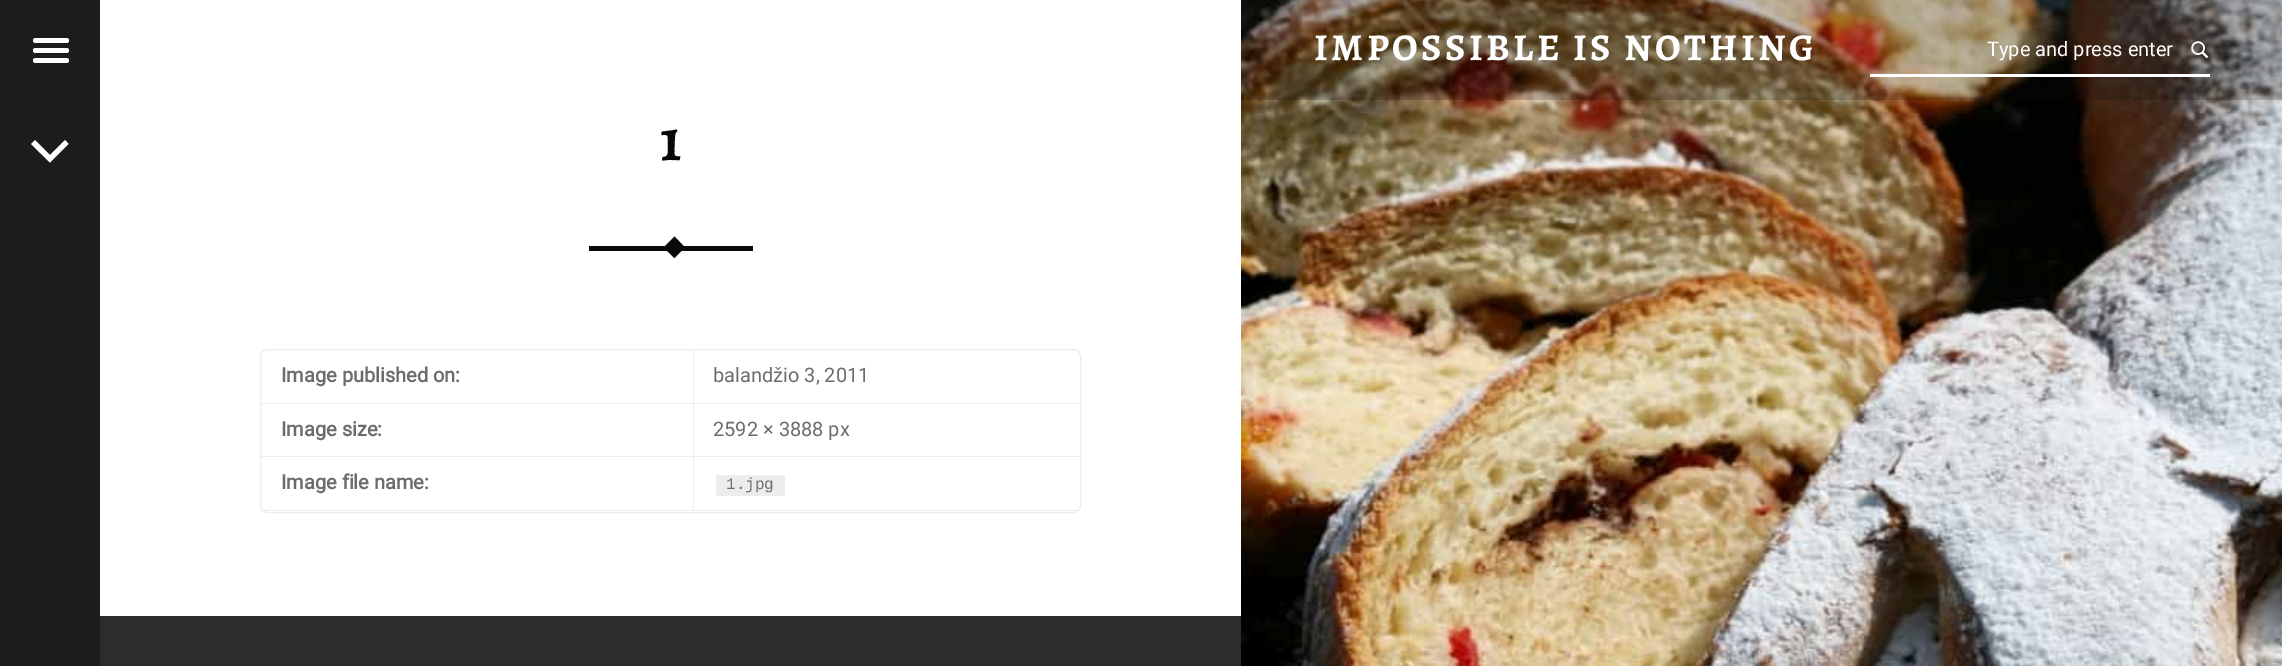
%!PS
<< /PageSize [2282 666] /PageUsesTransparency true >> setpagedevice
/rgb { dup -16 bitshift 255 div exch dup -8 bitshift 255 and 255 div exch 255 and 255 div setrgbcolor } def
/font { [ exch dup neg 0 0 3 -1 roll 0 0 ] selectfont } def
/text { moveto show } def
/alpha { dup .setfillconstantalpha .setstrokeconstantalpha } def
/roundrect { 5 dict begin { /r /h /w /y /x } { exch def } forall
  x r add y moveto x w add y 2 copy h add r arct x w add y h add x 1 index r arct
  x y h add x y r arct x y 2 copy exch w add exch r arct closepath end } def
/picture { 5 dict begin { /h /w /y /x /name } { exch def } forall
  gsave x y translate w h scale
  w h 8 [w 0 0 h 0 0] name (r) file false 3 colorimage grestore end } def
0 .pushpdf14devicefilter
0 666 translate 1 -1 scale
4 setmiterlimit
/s1 { /Roboto-Regular 20 font 16#FFFFFF rgb } def
/s2 { /Alegreya-Bold 60 font 16#0A0808 rgb } def
/s3 { /Roboto-Bold 20 font 16#6A6C6E rgb } def
/s4 { /Roboto-Regular 20 font 16#6A6C6E rgb } def
/s5 { /LiberationMono-Regular 16 font 16#6A6C6E rgb } def
16#FFFFFF rgb
0 0 2282 666 rectfill
16#1A1C1E rgb
0 0 100 666 rectfill
16#FFFFFF rgb
33 38 36 5 2.5 roundrect fill
33 48 36 5 2.5 roundrect fill
33 58 36 5 2.5 roundrect fill
50 162.5 moveto 31 144 lineto 35 140 lineto 50 155 lineto 65 140 lineto 68.5 144 lineto closepath fill
(pic2.raw) 1241 0 1041 666 picture
0.2 alpha
16#0A0A0A rgb
1241 0 1041 100 rectfill
/Alegreya-Bold 38 font
1 alpha
16#FFFFFF rgb
1314 60 moveto 3.4 0 (IMPOSSIBLE IS NOTHING) ashow
1870 74 340 3 rectfill
s1
(Type and press enter) 1987 56 text
(pic1.raw) 2191 41 18 18 picture
s2
(1) 660 160 text
589 246 164 5 rectfill
674.5 236.5 moveto 685 247.5 lineto 674.5 258 lineto 663.5 247.5 lineto closepath fill
16#EAECEE rgb
260.5 349.5 820 163 7.5 roundrect stroke
261 403 819 1 rectfill
s3
(Image published on:) 281 382 text
16#EAECEE rgb
693 350 1 54 rectfill
s4
(balandžio 3, 2011) 713 382 text
16#EAECEE rgb
261 456 819 1 rectfill
s3
(Image size:) 281 436 text
16#EAECEE rgb
693 404 1 54 rectfill
s4
(2592 × 3888 px) 713 436 text
16#EAECEE rgb
261 510 819 1 rectfill
s3
(Image file name:) 281 489 text
16#EAECEE rgb
693 458 1 53 rectfill
716 475 69 21 rectfill
s5
(1.jpg) 726 489 text
16#2A2C2E rgb
100 616 1141 50 rectfill
.poppdf14devicefilter showpage
